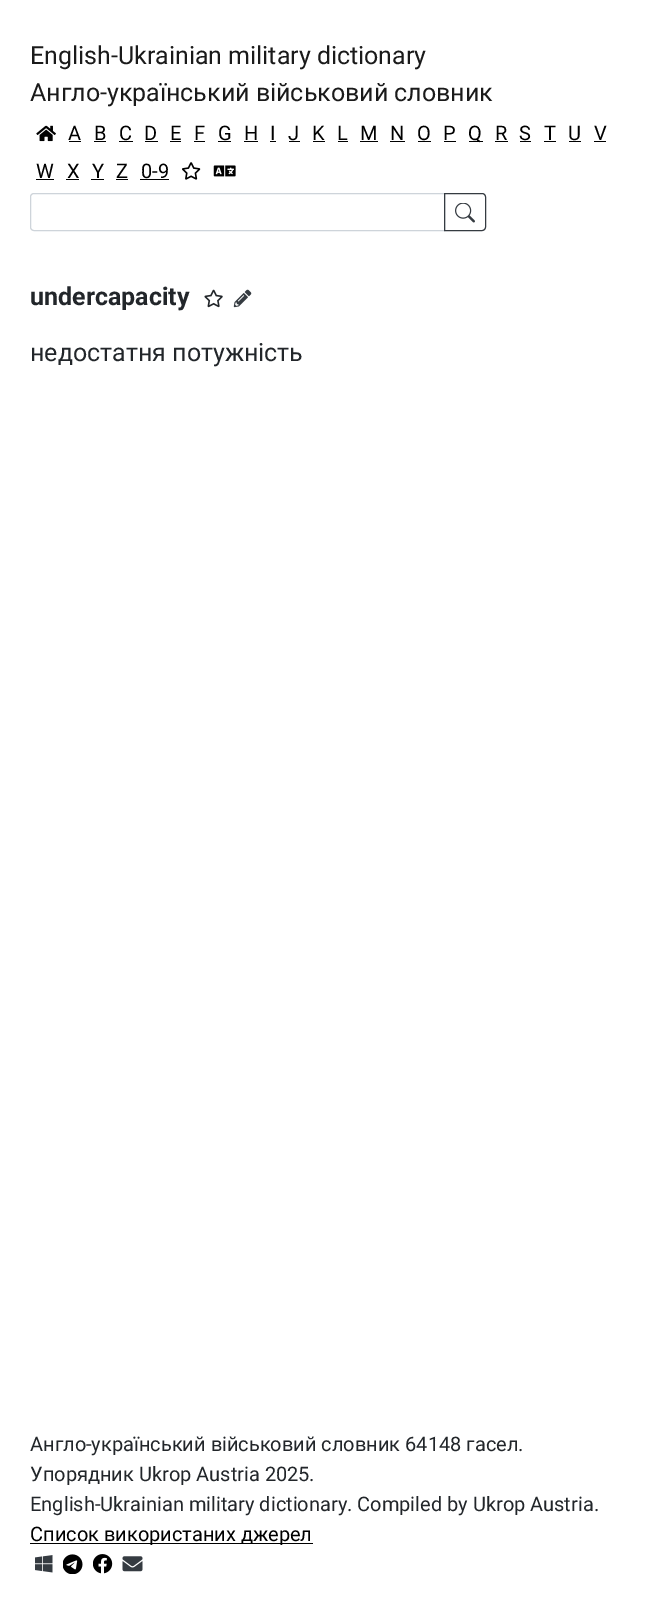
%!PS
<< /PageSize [645 1599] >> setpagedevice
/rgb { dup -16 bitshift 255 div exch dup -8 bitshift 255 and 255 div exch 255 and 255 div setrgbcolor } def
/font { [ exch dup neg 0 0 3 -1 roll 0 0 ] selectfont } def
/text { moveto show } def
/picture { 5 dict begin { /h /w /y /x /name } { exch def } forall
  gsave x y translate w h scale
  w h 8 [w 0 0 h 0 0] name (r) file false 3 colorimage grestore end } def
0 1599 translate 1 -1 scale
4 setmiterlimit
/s1 { /Roboto-Regular 25 font 16#1A1A1A rgb } def
/s2 { /Roboto-Regular 20 font 16#000000 rgb } def
/s3 { /Roboto-Bold 25 font 16#22262A rgb } def
/s4 { /Roboto-Regular 25 font 16#22262A rgb } def
/s5 { /Roboto-Regular 20 font 16#22262A rgb } def
16#FFFFFF rgb
0 0 645 1599 rectfill
s1
(English-Ukrainian military dictionary) 30 64 text
(Англо-український військовий словник) 30 101 text
(pic1.raw) 36 125 20 17 picture
s2
(A) 68 140 text
69 141 12 1 rectfill
(B) 94 140 text
94 141 12 1 rectfill
(C) 119 140 text
119 141 14 1 rectfill
(D) 144 140 text
145 141 13 1 rectfill
(E) 170 140 text
170 141 11 1 rectfill
(F) 194 140 text
194 141 11 1 rectfill
(G) 218 140 text
218 141 13 1 rectfill
(H) 244 140 text
244 141 14 1 rectfill
(I) 270 140 text
270 141 6 1 rectfill
(J) 288 140 text
289 141 11 1 rectfill
(K) 312 140 text
313 141 12 1 rectfill
(L) 337 140 text
338 141 10 1 rectfill
(M) 360 140 text
360 141 18 1 rectfill
(N) 390 140 text
390 141 15 1 rectfill
(O) 417 140 text
418 141 13 1 rectfill
(P) 443 140 text
444 141 12 1 rectfill
469 141 14 1 rectfill
(Q) 468 140 text
(R) 495 140 text
495 141 13 1 rectfill
(S) 519 140 text
520 141 11 1 rectfill
(T) 544 140 text
544 141 12 1 rectfill
(U) 568 140 text
569 141 12 1 rectfill
(V) 594 140 text
594 141 12 1 rectfill
(W) 36 178 text
36 179 18 1 rectfill
(X) 67 178 text
66 179 13 1 rectfill
(Y) 92 178 text
91 179 13 1 rectfill
(Z) 116 178 text
116 179 12 1 rectfill
(0-9) 141 178 text
140 179 29 1 rectfill
(pic2.raw) 182 162 19 18 picture
(pic3.raw) 213 165 23 12 picture
16#CED4DA rgb
34 193.5 moveto 444.5 193.5 lineto 444.5 230.5 lineto 34 230.5 lineto 32 230.5 30.5 229 30.5 227 curveto 30.5 197 lineto 30.5 195 32 193.5 34 193.5 curveto closepath stroke
16#353B41 rgb
444.5 193.5 moveto 482 193.5 lineto 484 193.5 485.5 195 485.5 197 curveto 485.5 227 lineto 485.5 229 484 230.5 482 230.5 curveto 444.5 230.5 lineto closepath stroke
(pic4.raw) 455 203 20 20 picture
s3
(undercapacity) 30 305 text
(pic5.raw) 204 289 19 19 picture
(pic6.raw) 233 289 19 19 picture
s4
(недостатня потужність) 30 361 text
s5
(Англо-український військовий словник 64148 гасел.) 30 1451 text
(Упорядник Ukrop Austria 2025.) 30 1481 text
(English-Ukrainian military dictionary. Compiled by Ukrop Austria.) 30 1511 text
16#000000 rgb
30 1543 283 1 rectfill
(Список використаних джерел) 30 1541 text
(pic7.raw) 35 1555 18 18 picture
(pic8.raw) 63 1554 20 20 picture
(pic9.raw) 93 1554 20 20 picture
(pic10.raw) 122 1556 21 16 picture
showpage
